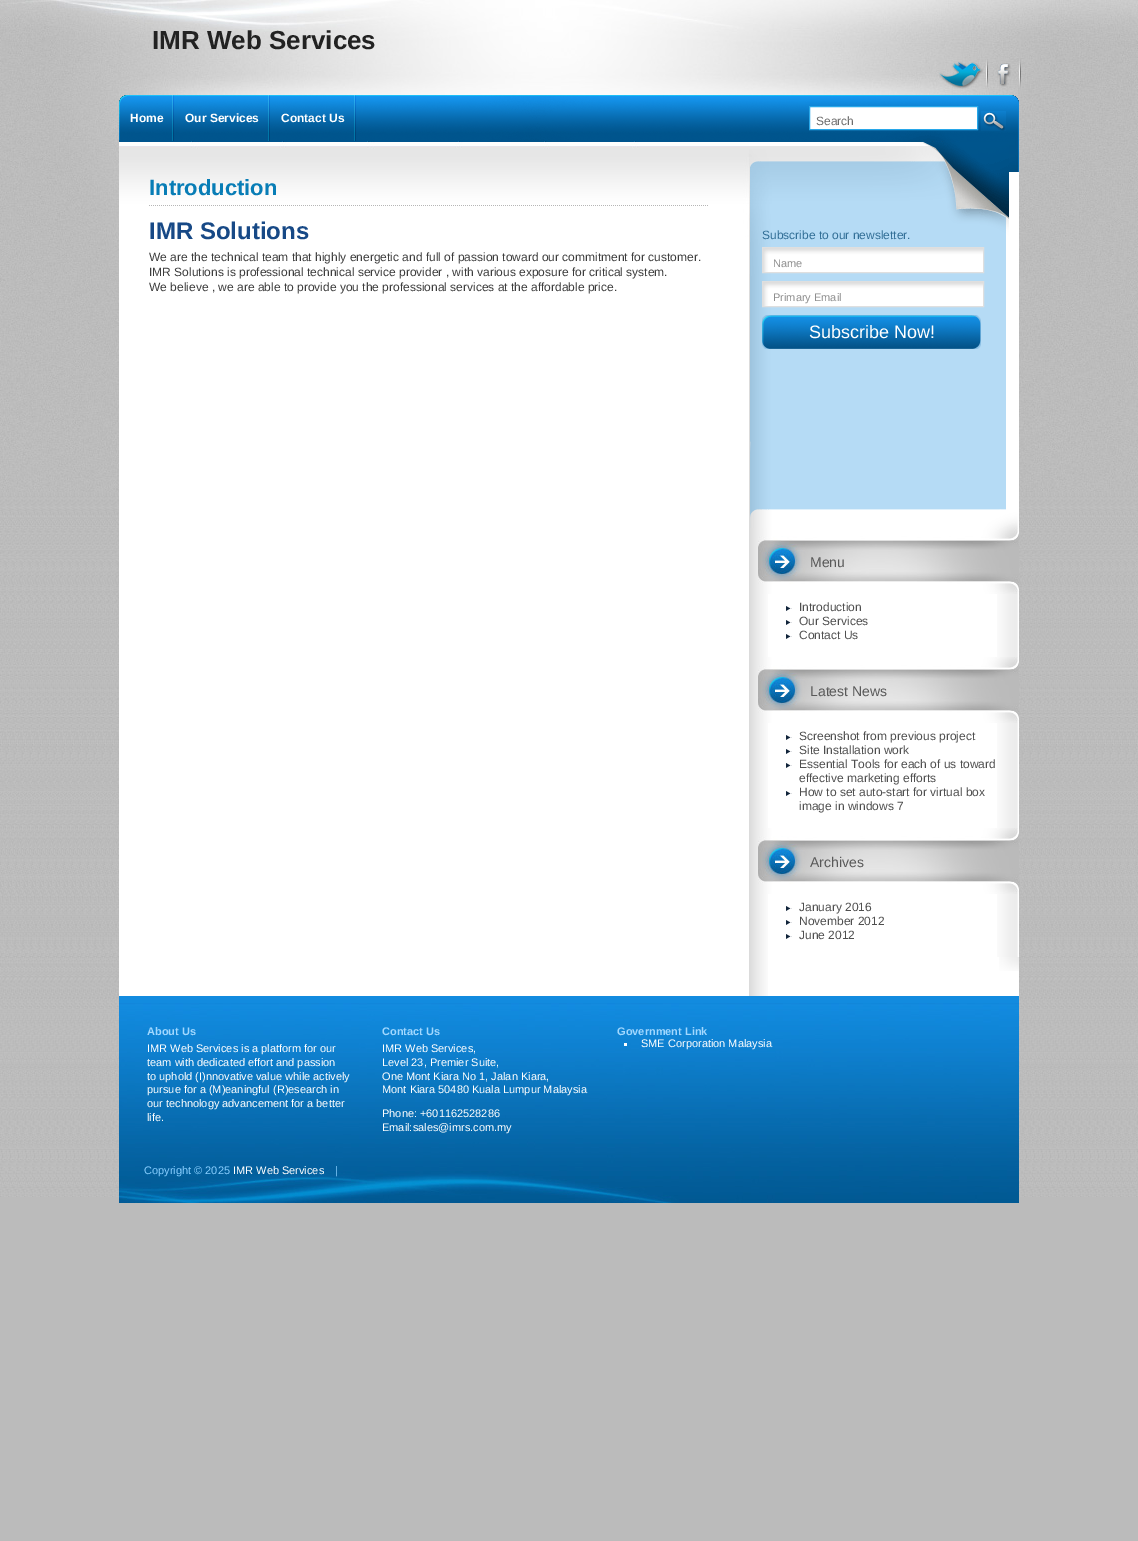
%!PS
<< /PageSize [1138 1541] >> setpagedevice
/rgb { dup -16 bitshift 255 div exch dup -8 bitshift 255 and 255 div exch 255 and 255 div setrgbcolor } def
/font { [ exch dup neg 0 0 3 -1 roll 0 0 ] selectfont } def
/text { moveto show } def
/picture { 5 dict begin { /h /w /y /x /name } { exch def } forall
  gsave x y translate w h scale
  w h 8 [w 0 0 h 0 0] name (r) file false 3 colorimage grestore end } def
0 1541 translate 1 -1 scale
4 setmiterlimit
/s1 { /LiberationSans-Bold 26 font 16#222222 rgb } def
/s2 { /LiberationSans-Bold 12 font 16#FFFFFF rgb } def
/s3 { /LiberationSans-Regular 12 font 16#6D6D6D rgb } def
/s4 { /LiberationSans-Bold 22 font 16#087DB6 rgb } def
/s5 { /LiberationSans-Bold 24 font 16#174986 rgb } def
/s6 { /LiberationSans-Regular 12 font 16#3D3D3D rgb } def
/s7 { /LiberationSans-Regular 12 font 16#326F97 rgb } def
/s8 { /LiberationSans-Regular 11 font 16#8F8F8F rgb } def
/s9 { /LiberationSans-Regular 18 font 16#FFFFFF rgb } def
/s10 { /LiberationSans-Regular 14 font 16#595959 rgb } def
/s11 { /LiberationSans-Regular 12 font 16#4F4F4F rgb } def
/s12 { /LiberationSans-Bold 11 font 16#A1D8FF rgb } def
/s13 { /LiberationSans-Regular 11 font 16#FFFFFF rgb } def
/s14 { /LiberationSans-Regular 11 font 16#88CEFF rgb } def
16#BBBBBB rgb
0 0 1138 1541 rectfill
(pic1.raw) 0 492 1138 705 picture
(pic2.raw) 0 0 1138 492 picture
s1
(IMR Web Services) 152 49 text
(pic3.raw) 939 59 49 30 picture
(pic4.raw) 997 59 24 29 picture
(pic5.raw) 119 95 900 46 picture
(pic6.raw) 172 95 2 46 picture
s2
(Home) 130 122 text
(pic6.raw) 268 95 2 46 picture
(Our Services) 185 122 text
(pic6.raw) 354 95 2 46 picture
(Contact Us) 281 122 text
809.5 106.5 moveto 977.5 106.5 lineto 977.5 129.5 lineto 809.5 129.5 lineto closepath gsave fill grestore
16#28A7E9 rgb
stroke
s3
(Search) 816 125 text
(pic7.raw) 981 111 25 20 picture
16#FFFFFF rgb
119 237 900 759 rectfill
(pic8.raw) 749 528 19 468 picture
(pic9.raw) 119 141 900 96 picture
s4
(Introduction) 149 195 text
(pic10.raw) 149 205 559 1 picture
s5
(IMR Solutions) 149 239 text
s6
(We are the technical team that highly energetic and full of passion toward our commitment for customer.) 149 261 text
(IMR Solutions is professional technical service provider , with various exposure for critical system.) 149 276 text
(We believe , we are able to provide you the professional services at the affordable price.) 149 291 text
(pic11.raw) 749 172 270 356 picture
(pic12.raw) 749 142 260 300 picture
s7
(Subscribe to our newsletter.) 762 239 text
(pic13.raw) 763 248 220 24 picture
16#DFDFDF rgb
762.5 247.5 221 25 rectstroke
s8
(Name) 773 267 text
(pic13.raw) 763 282 220 24 picture
16#DFDFDF rgb
762.5 281.5 221 25 rectstroke
s8
(Primary Email) 773 301 text
(pic14.raw) 762 315 219 34 picture
s9
(Subscribe Now!) 809 338 text
(pic15.raw) 999 957 20 14 picture
(pic16.raw) 997 594 21 63 picture
(pic17.raw) 758 528 261 66 picture
s10
(Menu) 810 567 text
(pic18.raw) 786 606 6 5 picture
s11
(Introduction) 799 611 text
(pic18.raw) 786 620 6 5 picture
(Our Services) 799 625 text
(pic18.raw) 786 634 6 5 picture
(Contact Us) 799 639 text
(pic19.raw) 997 723 21 105 picture
(pic17.raw) 758 657 261 66 picture
s10
(Latest News) 810 696 text
(pic18.raw) 786 735 6 5 picture
s11
(Screenshot from previous project) 799 740 text
(pic18.raw) 786 749 6 5 picture
(Site Installation work) 799 754 text
(pic18.raw) 786 763 6 5 picture
(Essential Tools for each of us toward) 799 768 text
(effective marketing efforts) 799 782 text
(pic18.raw) 786 791 6 5 picture
(How to set auto-start for virtual box) 799 796 text
(image in windows 7) 799 810 text
(pic16.raw) 997 894 21 63 picture
(pic17.raw) 758 828 261 66 picture
s10
(Archives) 810 867 text
(pic18.raw) 786 906 6 5 picture
s11
(January 2016) 799 911 text
(pic18.raw) 786 920 6 5 picture
(November 2012) 799 925 text
(pic18.raw) 786 934 6 5 picture
(June 2012) 799 939 text
16#128BDF rgb
119 996 900 7 rectfill
(pic20.raw) 119 1003 900 200 picture
s12
(About Us) 147 1035 text
s13
(IMR Web Services is a platform for our) 147 1052 text
(team with dedicated effort and passion) 147 1066 text
(to uphold \(I\)nnovative value while actively) 147 1080 text
(pursue for a \(M\)eaningful \(R\)esearch in) 147 1093 text
(our technology advancement for a better) 147 1107 text
(life.) 147 1121 text
s12
(Contact Us) 382 1035 text
s13
(IMR Web Services,) 382 1052 text
(Level 23, Premier Suite,) 382 1066 text
(One Mont Kiara No 1, Jalan Kiara,) 382 1080 text
(Mont Kiara 50480 Kuala Lumpur Malaysia) 382 1093 text
(Phone: +601162528286) 382 1117 text
(Email:sales@imrs.com.my) 382 1131 text
s12
(Government Link) 617 1035 text
16#FFFFFF rgb
624 1043 3 3 rectfill
s13
(SME Corporation Malaysia) 641 1047 text
s14
(Copyright © 2025) 144 1174 text
s13
(IMR Web Services) 233 1174 text
s14
(|) 335 1174 text
showpage
